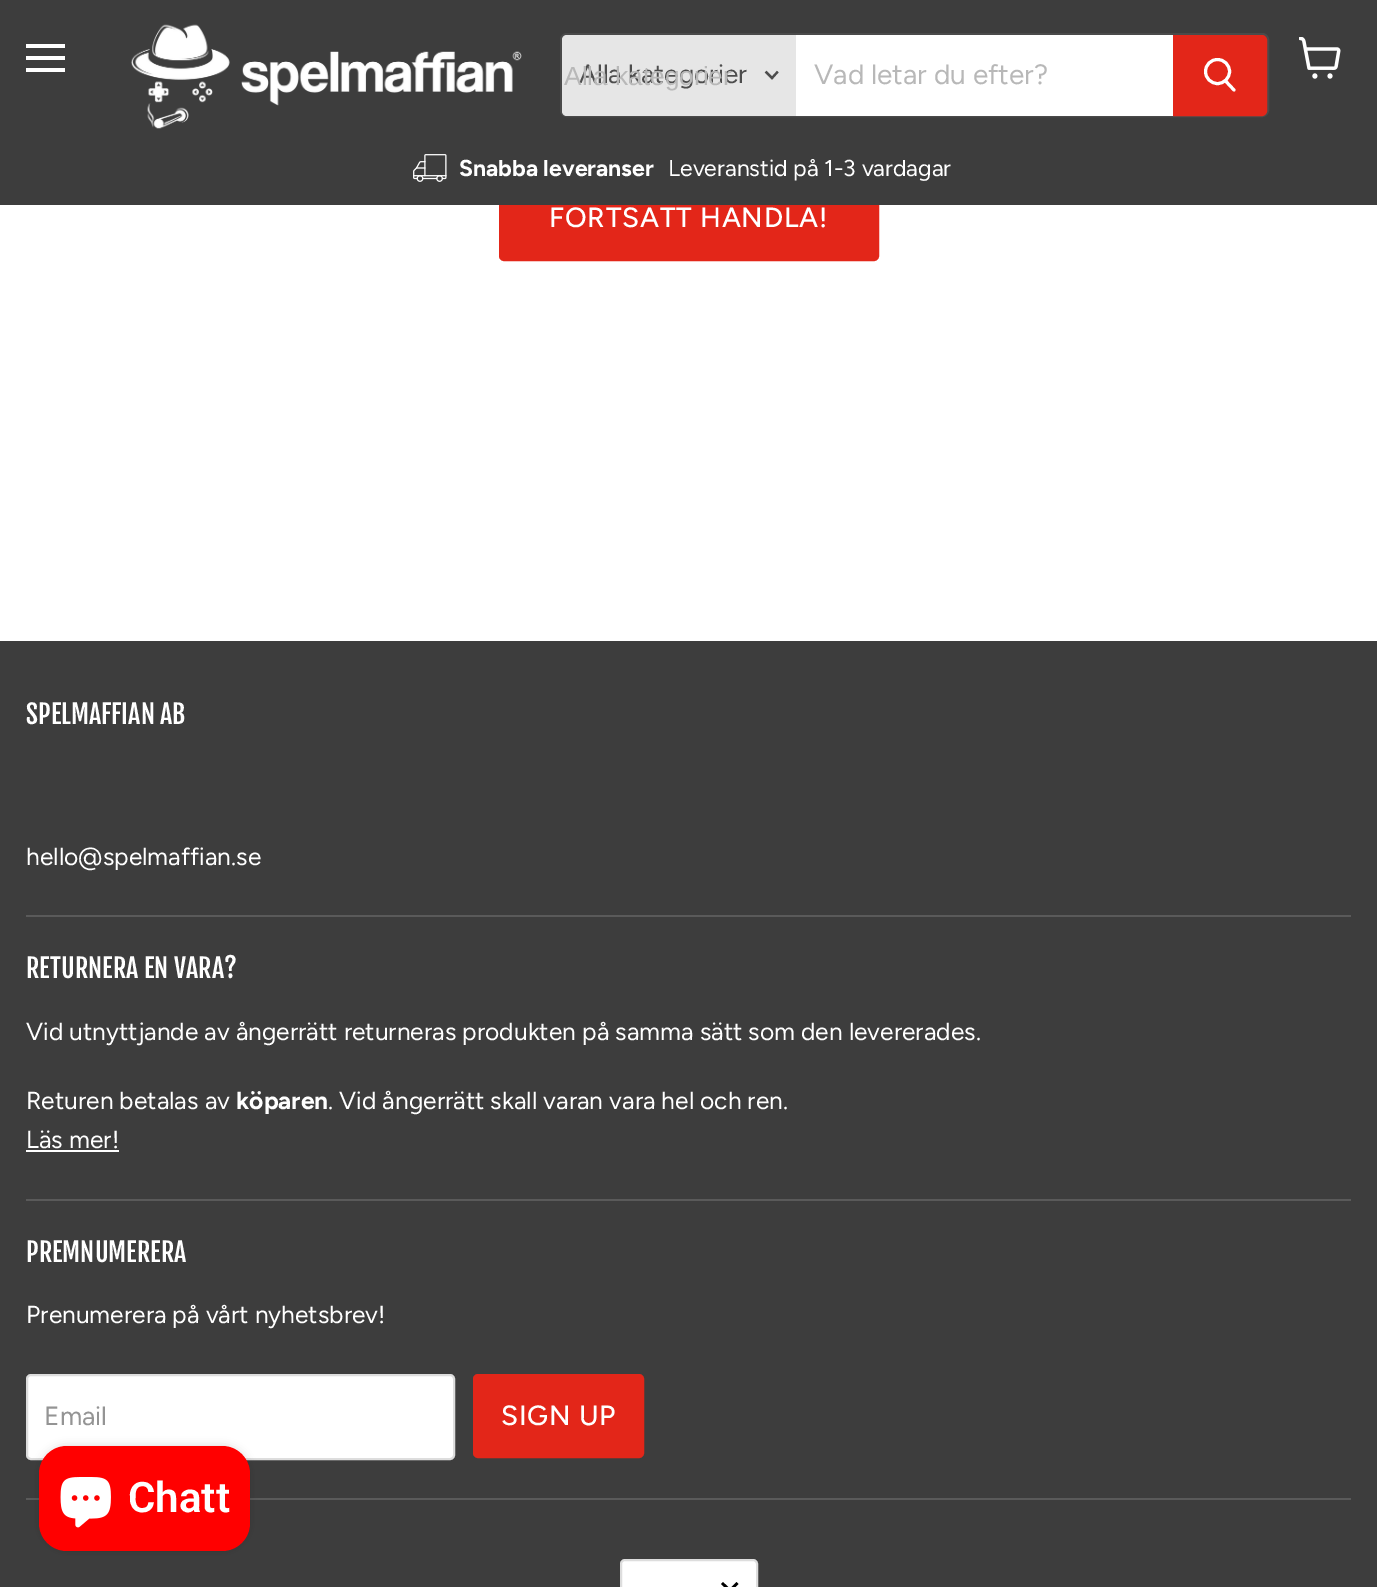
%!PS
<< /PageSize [1377 1587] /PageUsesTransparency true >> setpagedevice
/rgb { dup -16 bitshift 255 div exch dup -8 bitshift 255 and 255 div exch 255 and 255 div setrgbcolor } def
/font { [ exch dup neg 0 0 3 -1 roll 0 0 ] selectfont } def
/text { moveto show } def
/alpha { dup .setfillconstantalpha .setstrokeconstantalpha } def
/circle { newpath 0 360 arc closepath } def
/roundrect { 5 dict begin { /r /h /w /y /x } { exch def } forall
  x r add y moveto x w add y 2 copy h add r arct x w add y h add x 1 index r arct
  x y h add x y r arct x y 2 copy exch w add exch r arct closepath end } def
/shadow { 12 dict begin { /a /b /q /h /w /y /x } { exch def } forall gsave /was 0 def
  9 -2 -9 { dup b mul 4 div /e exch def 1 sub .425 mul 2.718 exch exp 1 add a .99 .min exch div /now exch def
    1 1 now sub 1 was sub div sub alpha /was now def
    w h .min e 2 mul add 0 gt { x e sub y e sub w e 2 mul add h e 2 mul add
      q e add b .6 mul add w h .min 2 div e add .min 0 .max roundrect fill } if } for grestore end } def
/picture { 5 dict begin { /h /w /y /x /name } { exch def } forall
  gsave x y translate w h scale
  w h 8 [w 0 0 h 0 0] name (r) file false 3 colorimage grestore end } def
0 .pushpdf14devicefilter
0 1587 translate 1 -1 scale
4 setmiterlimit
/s1 { /Figtree-Regular 26.25 font 16#4D4D4D rgb } def
/s2 { /LiberationSans-Regular 26.25 font 16#B8B8B8 rgb } def
/s3 { /Figtree-Regular 28 font 16#B8B8B8 rgb } def
/s4 { /Figtree-Bold 23 font 16#FFFFFF rgb } def
/s5 { /Figtree-Regular 23 font 16#FFFFFF rgb } def
/s6 { /FjallaOne-Regular 26 font 16#FFFFFF rgb } def
/s7 { /Figtree-Regular 24.6 font 16#FFFFFF rgb } def
/s8 { /Figtree-Bold 24.6 font 16#FFFFFF rgb } def
/s9 { /Figtree-Regular 26.25 font 16#949494 rgb } def
/s10 { /Roboto-SemiBold 42 font 16#FFFFFF rgb } def
16#FFFFFF rgb
0 0 1377 1587 rectfill
16#E32619 rgb
500 178 378 82 4 roundrect gsave fill grestore
2 setlinewidth
stroke
/Figtree-Medium 27.75 font
16#FFFFFF rgb
549 227 moveto 0.8 0 (FORTSÄTT HANDLA!) ashow
16#3D3D3D rgb
0 0 1377 205 rectfill
16#FFFFFF rgb
26 44 39 4 rectfill
26 56 39 4 rectfill
26 68 39 4 rectfill
(pic1.raw) 1299 37 42 42 picture
(pic2.raw) 131 24 391 105 picture
0.2 alpha
16#808080 rgb
561 34 707 82 6 roundrect stroke
1 alpha
16#E6E6E6 rgb
567 35 moveto 796 35 lineto 796 116 lineto 567 116 lineto 564 116 562 114 562 111 curveto 562 40 lineto 562 37 564 35 567 35 curveto closepath fill
s1
(Alla kategorier) 579 83 text
s2
(Alla kategorier) 564 85 text
16#4D4D4D rgb
2.2 setlinewidth
2 setlinecap
772 78 moveto 777 72.5 lineto 772 78 moveto 766.5 72.5 lineto stroke
16#FFFFFF rgb
796 35 377 81 rectfill
s3
(Vad letar du efter?) 814 84 text
16#E32619 rgb
1174 36 moveto 1262 36 lineto 1264 36 1266 38 1266 40 curveto 1266 111 lineto 1266 113 1264 115 1262 115 curveto 1174 115 lineto closepath gsave fill grestore
2 setlinewidth
0 setlinecap
stroke
16#FFFFFF rgb
3 setlinewidth
1 setlinecap
1234 90 moveto 1226 81.5 lineto stroke
0 setlinecap
1217.5 71.5 12 circle stroke
(pic3.raw) 413 154 34 28 picture
s4
(Snabba leveranser) 459 176 text
s5
(Leveranstid på 1-3 vardagar) 668 176 text
16#3D3D3D rgb
0 641 1377 946 rectfill
16#5A5A5A rgb
26 915 1325 2 rectfill
s6
(SPELMAFFIAN AB) 26 724 text
s7
(hello@spelmaffian.se) 26 865 text
16#5A5A5A rgb
26 1199 1325 2 rectfill
s6
(RETURNERA EN VARA?) 26 978 text
s7
(Vid utnyttjande av ångerrätt returneras produkten på samma sätt som den levererades.) 26 1040 text
(Returen betalas av) 26 1109 text
s8
(köparen) 236 1109 text
s7
(. Vid ångerrätt skall varan vara hel och ren.) 328 1109 text
(Läs mer!) 26 1148 text
26 1150 93 2 rectfill
16#5A5A5A rgb
26 1498 1325 2 rectfill
s6
(PREMNUMERERA) 26 1262 text
s7
(Prenumerera på vårt nyhetsbrev!) 26 1323 text
27 1375 427 84 4 roundrect gsave fill grestore
16#DDDDDD rgb
2 setlinewidth
stroke
s9
(Email) 44 1425 text
16#E32619 rgb
474 1375 169 82 4 roundrect gsave fill grestore
stroke
/Figtree-Medium 27.75 font
16#FFFFFF rgb
501 1425 moveto 0.8 0 (SIGN UP) ashow
621 1560 136 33 4 roundrect gsave fill grestore
16#DDDDDD rgb
stroke
16#000000 rgb
2.7 setlinewidth
2 setlinecap
730 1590.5 moveto 736.5 1584 lineto 730 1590.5 moveto 723 1584 lineto stroke
39 1446 211 105 28 4.5 0.15 shadow
16#FF0000 rgb
39 1446 211 105 28 roundrect fill
(pic4.raw) 60 1477 51 51 picture
s10
(Chatt) 128 1512 text
.poppdf14devicefilter showpage
